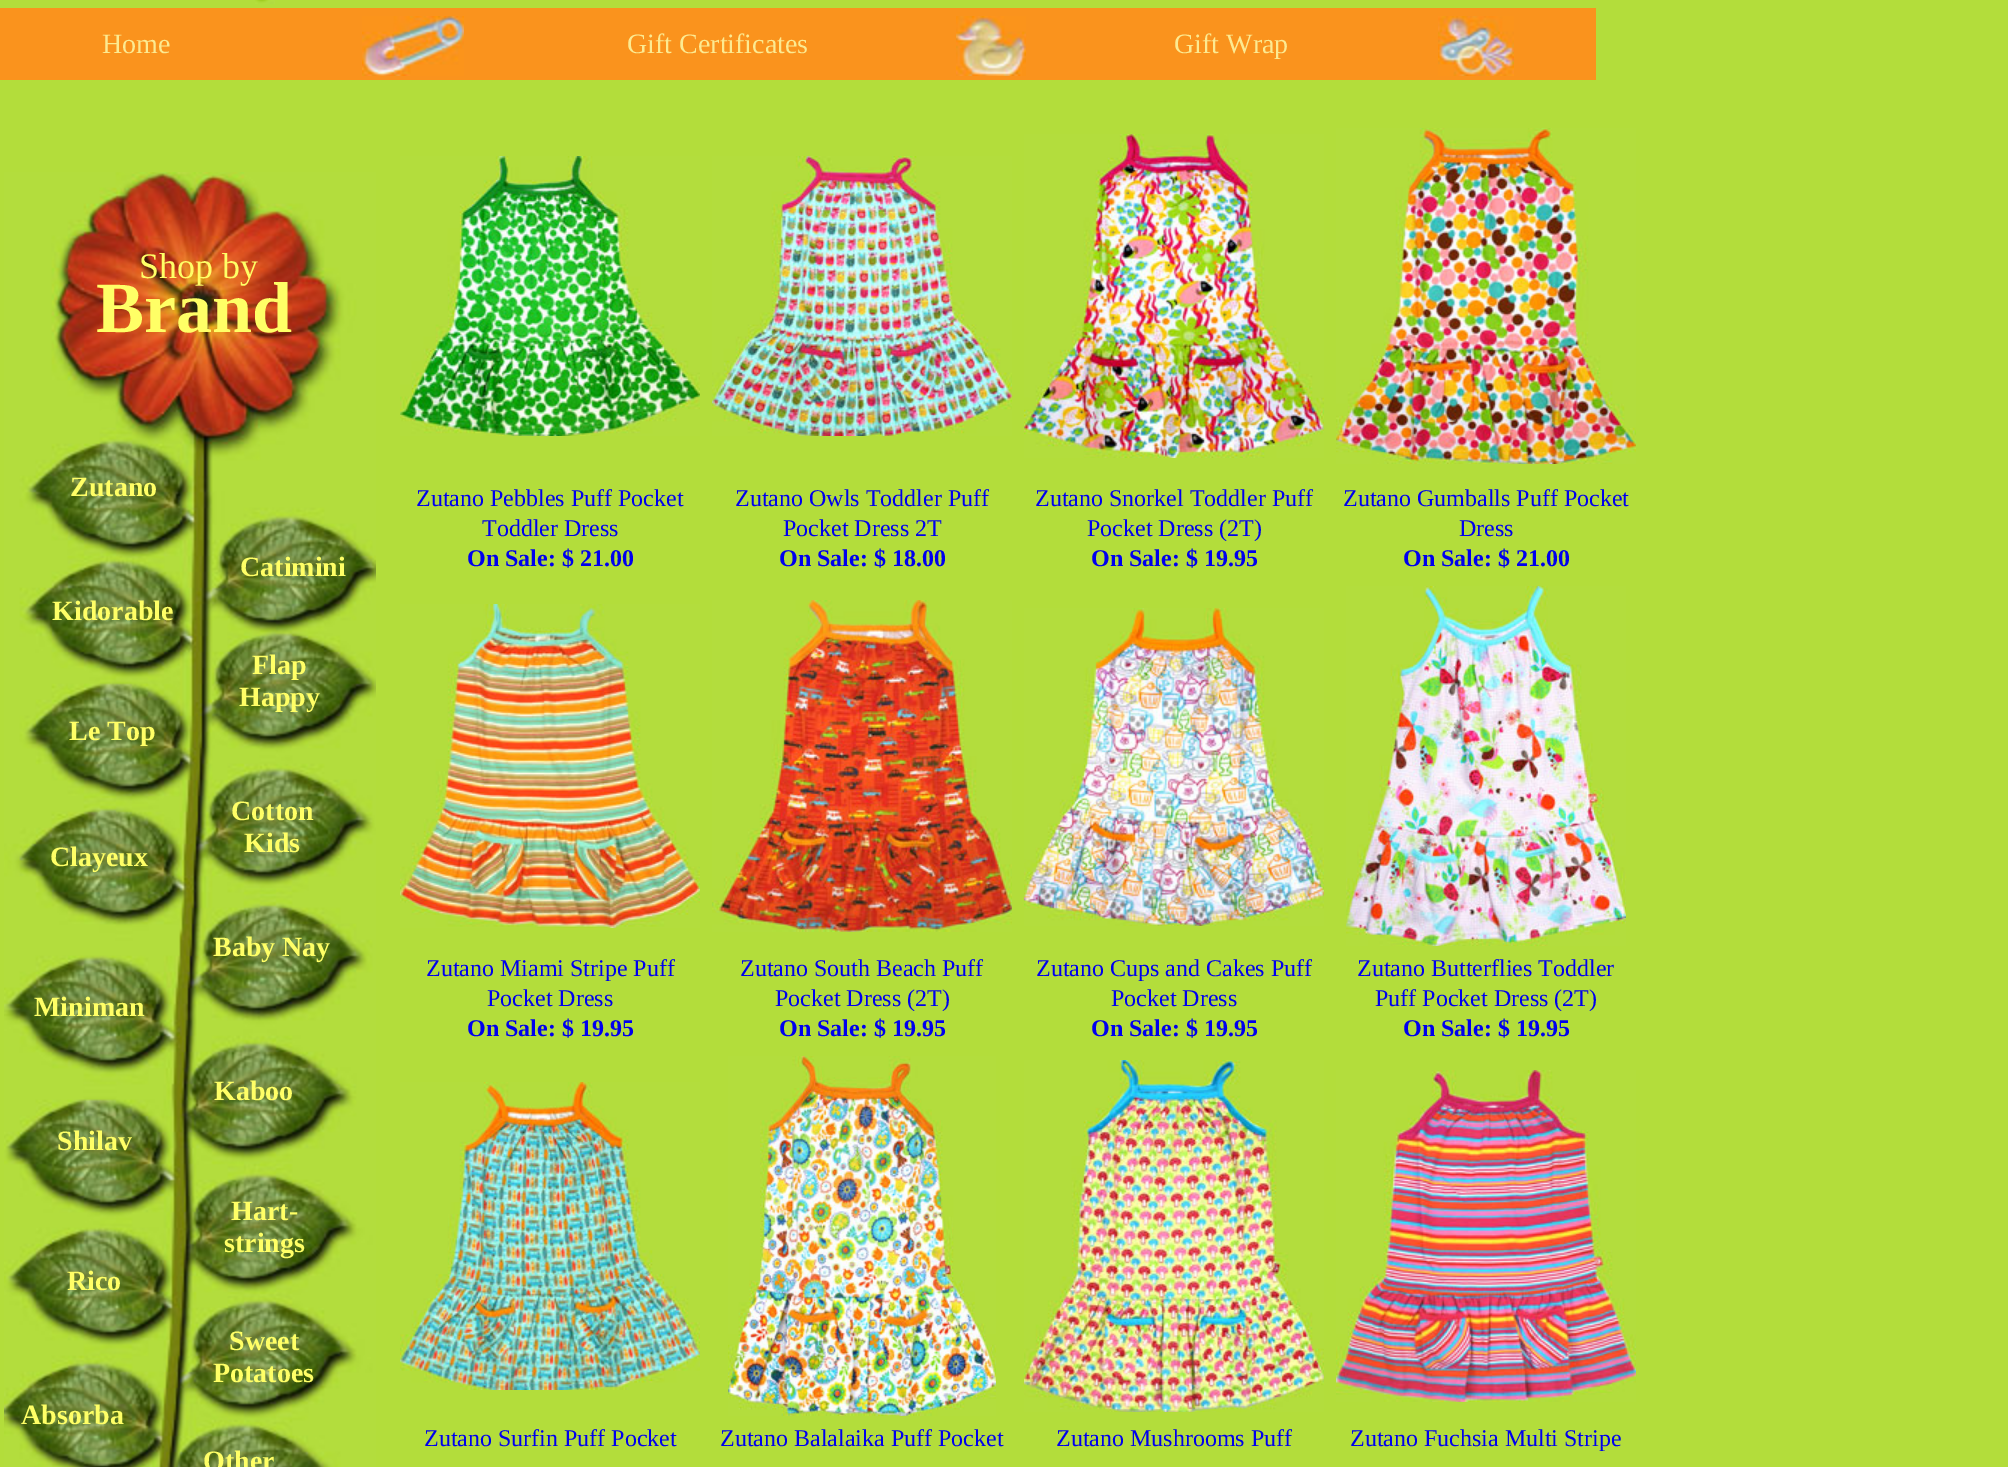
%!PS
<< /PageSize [2008 1467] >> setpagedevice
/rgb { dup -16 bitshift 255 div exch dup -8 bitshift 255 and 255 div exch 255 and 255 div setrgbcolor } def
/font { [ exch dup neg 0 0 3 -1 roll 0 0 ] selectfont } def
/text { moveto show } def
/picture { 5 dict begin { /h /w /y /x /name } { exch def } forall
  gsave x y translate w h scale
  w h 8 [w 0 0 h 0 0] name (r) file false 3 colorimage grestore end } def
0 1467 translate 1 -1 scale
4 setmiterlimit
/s1 { /LiberationSerif-Regular 28 font 16#FCEA91 rgb } def
/s2 { /LiberationSerif-Regular 36 font 16#FFFF66 rgb } def
/s3 { /LiberationSerif-Bold 72 font 16#FFFF66 rgb } def
/s4 { /LiberationSerif-Bold 28 font 16#FFFF66 rgb } def
/s5 { /LiberationSerif-Regular 24 font 16#0000EE rgb } def
/s6 { /LiberationSerif-Bold 24 font 16#0000EE rgb } def
16#B3DD3B rgb
0 0 2008 1467 rectfill
(pic1.raw) 255 0 20 4 picture
16#FA931D rgb
0 8 1596 72 rectfill
s1
(Home) 102 53 text
(pic2.raw) 362 16 102 60 picture
(Gift Certificates) 627 53 text
(pic3.raw) 956 16 70 60 picture
(Gift Wrap) 1174 53 text
(pic4.raw) 1438 16 76 60 picture
(pic5.raw) 4 172 372 1295 picture
s2
(Shop by) 139 278 text
s3
(Brand) 96 332 text
s4
(Zutano) 70 496 text
(Catimini) 240 576 text
(Kidorable) 52 620 text
(Flap) 252 674 text
(Happy) 239 706 text
(Le Top) 69 740 text
(Cotton) 231 820 text
(Kids) 244 852 text
(Clayeux) 50 866 text
(Baby Nay) 213 956 text
(Miniman) 34 1016 text
(Kaboo) 214 1100 text
(Shilav) 57 1150 text
(Hart-) 231 1220 text
(strings) 224 1252 text
(Rico) 67 1290 text
(Sweet) 229 1350 text
(Potatoes) 213 1382 text
(Absorba) 21 1424 text
(Other) 203 1470 text
(pic6.raw) 400 156 300 280 picture
s5
(Zutano Pebbles Puff Pocket) 416 506 text
(Toddler Dress) 482 536 text
s6
(On Sale: $ 21.00) 467 566 text
(pic7.raw) 712 156 300 280 picture
s5
(Zutano Owls Toddler Puff) 735 506 text
(Pocket Dress 2T) 783 536 text
s6
(On Sale: $ 18.00) 779 566 text
(pic8.raw) 1024 134 300 324 picture
s5
(Zutano Snorkel Toddler Puff) 1035 506 text
(Pocket Dress \(2T\)) 1087 536 text
s6
(On Sale: $ 19.95) 1091 566 text
(pic9.raw) 1336 128 300 336 picture
s5
(Zutano Gumballs Puff Pocket) 1343 506 text
(Dress) 1459 536 text
s6
(On Sale: $ 21.00) 1403 566 text
(pic10.raw) 400 604 300 324 picture
s5
(Zutano Miami Stripe Puff) 426 976 text
(Pocket Dress) 487 1006 text
s6
(On Sale: $ 19.95) 467 1036 text
(pic11.raw) 712 600 300 332 picture
s5
(Zutano South Beach Puff) 740 976 text
(Pocket Dress \(2T\)) 775 1006 text
s6
(On Sale: $ 19.95) 779 1036 text
(pic12.raw) 1024 608 300 318 picture
s5
(Zutano Cups and Cakes Puff) 1036 976 text
(Pocket Dress) 1111 1006 text
s6
(On Sale: $ 19.95) 1091 1036 text
(pic13.raw) 1346 586 280 360 picture
s5
(Zutano Butterflies Toddler) 1357 976 text
(Puff Pocket Dress \(2T\)) 1375 1006 text
s6
(On Sale: $ 19.95) 1403 1036 text
(pic14.raw) 400 1082 300 308 picture
s5
(Zutano Surfin Puff Pocket) 424 1446 text
(pic15.raw) 728 1056 268 360 picture
(Zutano Balalaika Puff Pocket) 720 1446 text
(pic16.raw) 1024 1060 300 352 picture
(Zutano Mushrooms Puff) 1056 1446 text
(pic17.raw) 1336 1070 300 332 picture
(Zutano Fuchsia Multi Stripe) 1350 1446 text
showpage
